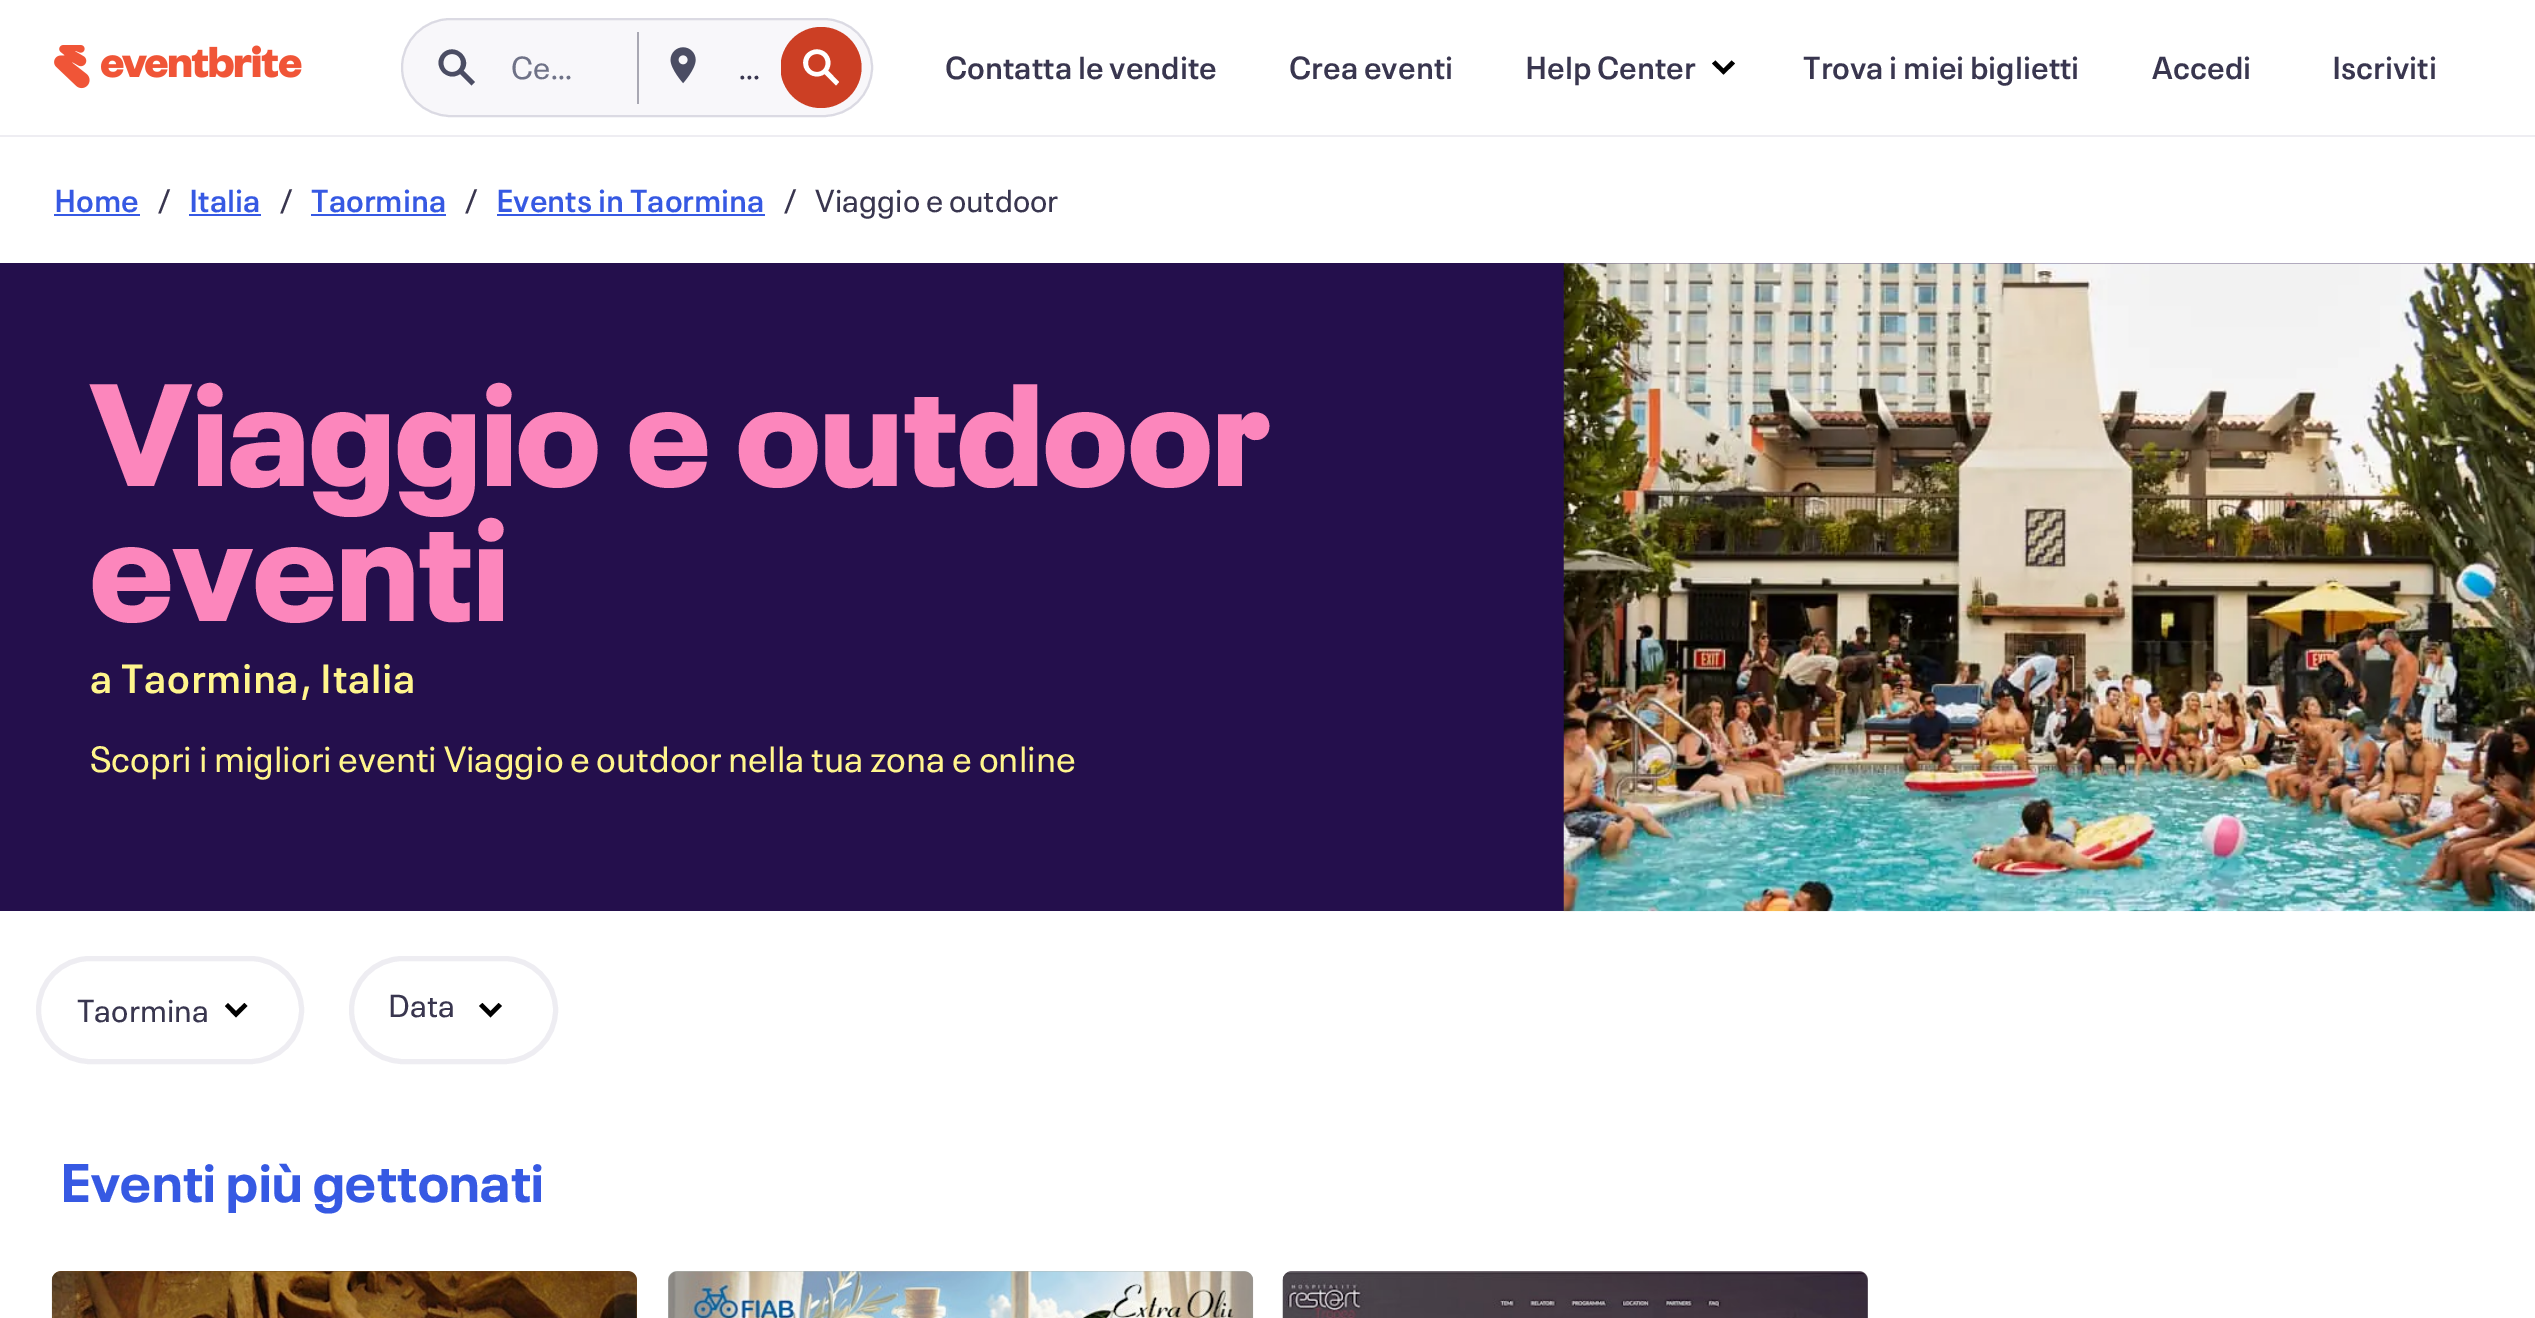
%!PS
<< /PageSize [2535 1318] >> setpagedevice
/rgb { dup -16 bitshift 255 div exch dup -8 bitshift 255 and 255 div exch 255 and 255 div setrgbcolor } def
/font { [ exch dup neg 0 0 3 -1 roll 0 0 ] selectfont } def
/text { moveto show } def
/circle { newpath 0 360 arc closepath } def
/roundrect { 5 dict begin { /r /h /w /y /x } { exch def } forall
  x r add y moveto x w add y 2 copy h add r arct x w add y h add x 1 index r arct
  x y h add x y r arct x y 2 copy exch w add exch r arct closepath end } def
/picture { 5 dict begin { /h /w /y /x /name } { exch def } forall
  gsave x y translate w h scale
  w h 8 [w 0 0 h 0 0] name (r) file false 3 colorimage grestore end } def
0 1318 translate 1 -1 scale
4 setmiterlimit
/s1 { /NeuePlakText-Regular 31.5 font 16#6F7287 rgb } def
/s2 { /NeuePlakText-Regular 31.5 font 16#39364F rgb } def
/s3 { /NeuePlakText-SemiBold 31.5 font 16#39364F rgb } def
/s4 { /NeuePlakText-SemiBold 31.5 font 16#3659E3 rgb } def
/s5 { /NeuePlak-Black 144 font 16#FC86BC rgb } def
/s6 { /NeuePlakText-Regular 36 font 16#FFF58C rgb } def
16#FFFFFF rgb
0 0 2535 1318 rectfill
16#EEEDF2 rgb
0 135 2535 2 rectfill
(pic1.raw) 54 45 248 44 picture
16#F8F7FA rgb
402 19 470 97 48.5 roundrect gsave fill grestore
16#DBDAE3 rgb
2 setlinewidth
stroke
16#4B4D63 rgb
452 72 moveto 464 72 464 54 452 54 curveto 440.5 54 440.5 72 452 72 curveto closepath 460 74 moveto 447 83 431 65.5 442.5 53.5 curveto 454.5 41.5 473 58.5 463.5 70.5 curveto 475 82 lineto 471.5 85.5 lineto closepath eofill
s1
(Ce…) 511 79 text
16#A9A8B3 rgb
637 32 2 72 rectfill
(pic2.raw) 670 47 26 37 picture
s2
(…) 738 79 text
gsave
781 27 81 81 rectclip
16#CC3F24 rgb
821 67.5 40.5 circle fill
grestore
16#FFFFFF rgb
828 70.5 moveto 832 65 831 57 825.5 52.5 curveto 820 48 812 48.5 807 53.5 curveto 802 58.5 802 66.5 806.5 71.5 curveto 811 77 819 78 824.5 74 curveto 836 85.5 lineto 839 82 lineto closepath 817 72 moveto 828.5 72 828.5 54 817 54 curveto 805 54 805 72 817 72 curveto closepath eofill
s3
(Contatta le vendite) 945 79 text
(Crea eventi) 1289 79 text
(Help Center) 1525 79 text
16#000000 rgb
1712 63.5 moveto 1723.5 74.5 lineto 1735 63.5 lineto 1731.5 60.5 lineto 1723.5 68.5 lineto 1715.5 60.5 lineto closepath eofill
s3
(Trova i miei biglietti) 1803 79 text
(Accedi) 2152 79 text
(Iscriviti) 2332 79 text
s4
(Home) 54 212 text
54 214 86 2 rectfill
s2
(/) 157 212 text
s4
(Italia) 189 212 text
189 214 72 2 rectfill
s2
(/) 279 212 text
s4
(Taormina) 311 212 text
311 214 135 2 rectfill
s2
(/) 464 212 text
s4
(Events in Taormina) 496 212 text
497 214 268 2 rectfill
s2
(/) 783 212 text
(Viaggio e outdoor) 815 212 text
16#240F4C rgb
0 263 1564 648 rectfill
s5
(Viaggio e outdoor) 90 486 text
(eventi) 90 621 text
/NeuePlakText-SemiBold 40.5 font
16#FFF58C rgb
90 693 moveto 0.6 0 (a Taormina, Italia) ashow
s6
(Scopri i migliori eventi Viaggio e outdoor nella tua zona e online) 90 772 text
16#5B4B79 rgb
1564 263 971 1 rectfill
(pic3.raw) 1563 263 972 649 picture
16#EEEDF2 rgb
5 setlinewidth
38.5 958.5 263 103 51.5 roundrect stroke
s2
(Taormina) 77 1022 text
16#000000 rgb
225 1006 moveto 236 1017.5 lineto 247.5 1006 lineto 244.5 1003 lineto 236 1011 lineto 228 1003 lineto closepath eofill
16#EEEDF2 rgb
351.5 958.5 204 103 51.5 roundrect stroke
s2
(Data) 388 1017 text
16#000000 rgb
479 1006 moveto 490.5 1017.5 lineto 502 1006 lineto 498.5 1003 lineto 490.5 1011 lineto 482.5 1003 lineto closepath eofill
/NeuePlak-Bold 54 font
16#3659E3 rgb
61 1202 moveto 0.6 0 (Eventi più gettonati) ashow
16#6D481D rgb
52 1271 585 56 9 roundrect fill
(pic4.raw) 51 1271 586 47 picture
16#B2B9B5 rgb
668 1271 585 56 9 roundrect fill
(pic5.raw) 668 1271 586 47 picture
16#645B64 rgb
1283 1271 585 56 9 roundrect fill
(pic6.raw) 1282 1271 586 47 picture
showpage
